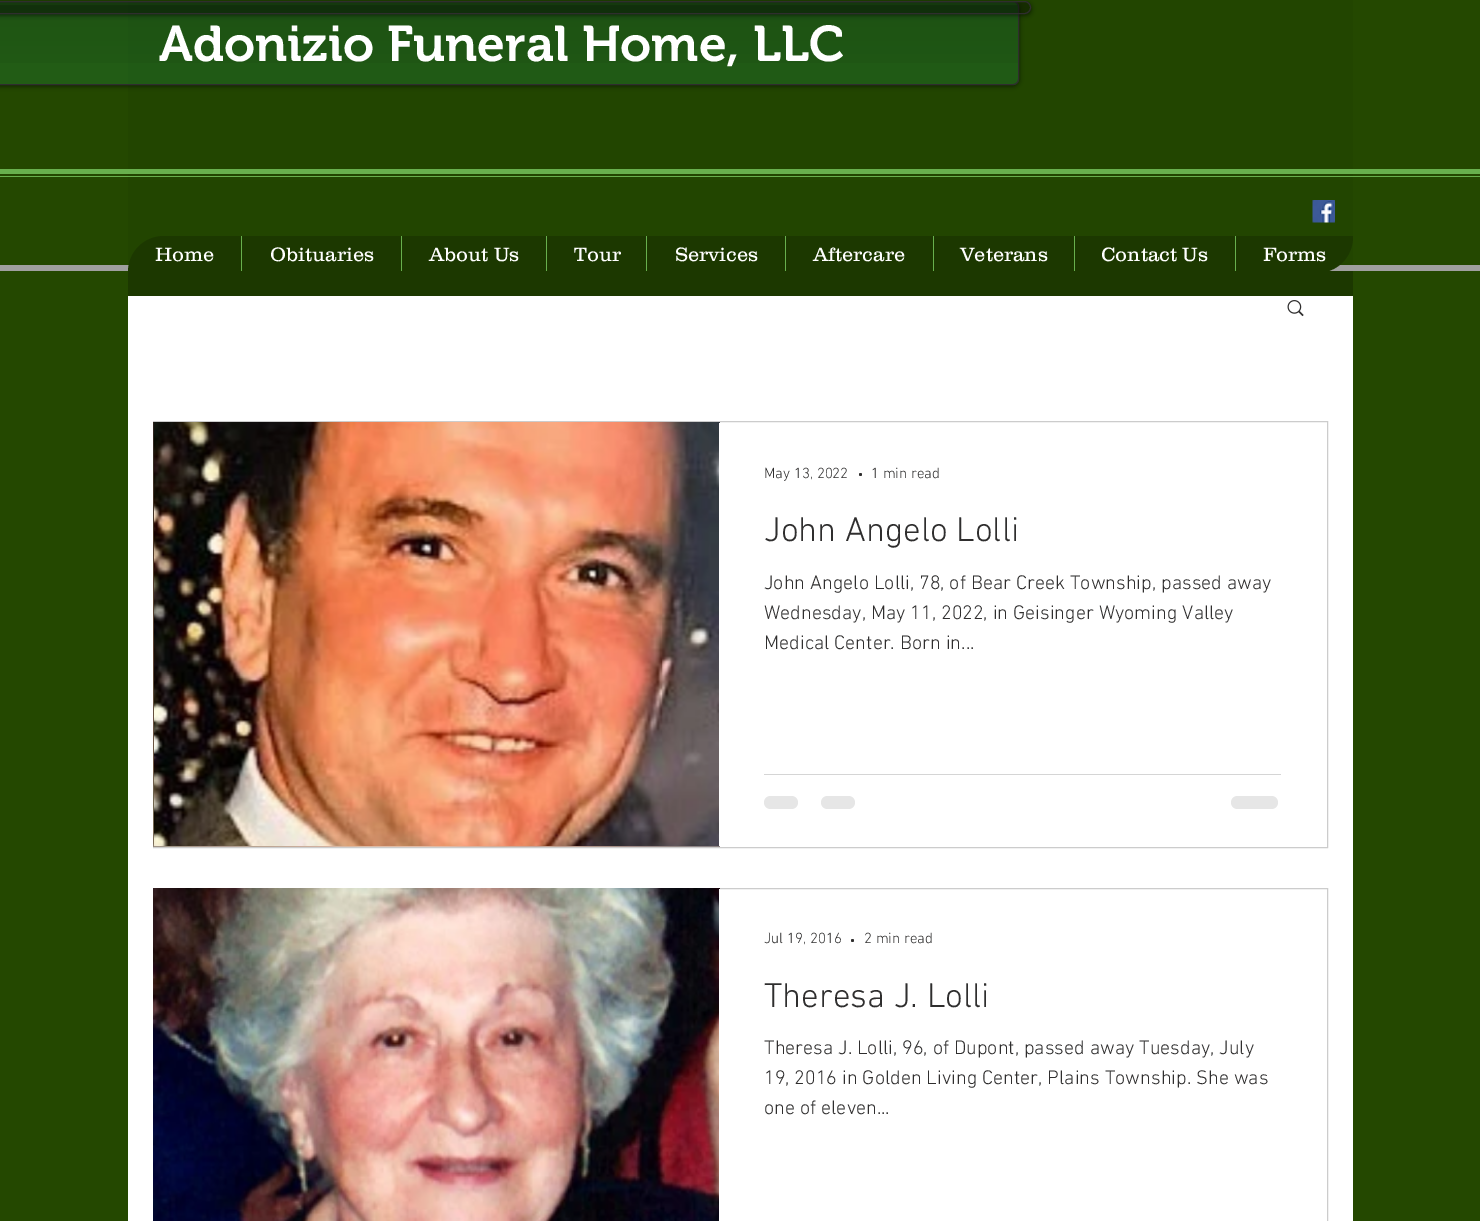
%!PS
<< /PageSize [1480 1221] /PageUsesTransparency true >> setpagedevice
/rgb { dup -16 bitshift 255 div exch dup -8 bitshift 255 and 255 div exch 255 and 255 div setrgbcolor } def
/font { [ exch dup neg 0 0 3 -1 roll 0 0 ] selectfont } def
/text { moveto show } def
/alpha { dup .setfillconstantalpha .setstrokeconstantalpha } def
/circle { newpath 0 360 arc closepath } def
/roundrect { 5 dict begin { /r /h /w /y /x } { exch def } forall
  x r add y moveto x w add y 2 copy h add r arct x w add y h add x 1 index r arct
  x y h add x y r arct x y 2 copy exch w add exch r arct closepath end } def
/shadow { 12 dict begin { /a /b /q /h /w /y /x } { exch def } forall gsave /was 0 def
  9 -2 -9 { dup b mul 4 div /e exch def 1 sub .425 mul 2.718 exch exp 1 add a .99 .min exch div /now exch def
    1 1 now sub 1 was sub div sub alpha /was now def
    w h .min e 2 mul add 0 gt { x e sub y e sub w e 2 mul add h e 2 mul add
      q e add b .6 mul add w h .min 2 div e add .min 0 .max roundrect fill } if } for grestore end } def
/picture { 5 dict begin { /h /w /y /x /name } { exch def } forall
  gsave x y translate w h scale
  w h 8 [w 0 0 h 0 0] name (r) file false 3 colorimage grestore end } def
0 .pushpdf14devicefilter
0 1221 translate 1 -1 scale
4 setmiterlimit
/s1 { /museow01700-SemiBold 50 font 16#FFFFFF rgb } def
/s2 { /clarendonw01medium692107-Light 20 font 16#FFFFFF rgb } def
/s3 { /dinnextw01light-Light 15 font 16#2F2E2E rgb } def
/s4 { /dinnextw01light-Light 35 font 16#2F2E2E rgb } def
/s5 { /dinnextw01light-Light 20 font 16#2F2E2E rgb } def
16#244800 rgb
0 0 1480 1221 rectfill
16#224500 rgb
128 0 1225 265 rectfill
gsave
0 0 moveto 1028 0 lineto 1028 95 lineto 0 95 lineto closepath -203 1 moveto 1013 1 lineto 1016.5 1 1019 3.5 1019 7 curveto 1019 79 lineto 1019 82.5 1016.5 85 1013 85 curveto -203 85 lineto -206.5 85 -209 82.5 -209 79 curveto -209 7 lineto -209 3.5 -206.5 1 -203 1 curveto closepath eoclip newpath
16#000000 rgb
-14 3 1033 83 6 2.5 0.6 shadow
grestore
0.31 alpha
16#1C8A43 rgb
-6 1 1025 84 6 roundrect fill
1 alpha
(pic1.raw) 0 5 1019 58 picture
16#2F2E2E rgb
-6.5 1.5 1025 83 5.5 roundrect stroke
gsave
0 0 moveto 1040 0 lineto 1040 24 lineto 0 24 lineto closepath -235.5 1 moveto 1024.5 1 lineto 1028 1 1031 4 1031 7.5 curveto 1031 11 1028 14 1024.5 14 curveto -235.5 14 lineto -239 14 -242 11 -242 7.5 curveto -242 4 -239 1 -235.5 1 curveto closepath eoclip newpath
16#000000 rgb
-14 3 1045 12 6 2.5 0.6 shadow
grestore
0.37 alpha
16#000000 rgb
-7 1 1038 13 6.5 roundrect fill
0.09 alpha
0 5 1018 8 rectfill
1 alpha
16#2F2E2E rgb
-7.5 1.5 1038 12 6 roundrect stroke
s1
(Adonizio Funeral Home, LLC) 159 61 text
16#68B04D rgb
0 169 1480 5 rectfill
0 176 1480 1 rectfill
(pic2.raw) 1312 200 23 23 picture
16#A0A09F rgb
0 265 1480 6 rectfill
16#1C3800 rgb
164 236 moveto 1353 236 lineto 1353 237 lineto 1353 257 1337 273 1317 273 curveto 128 273 lineto 128 272 lineto 128 252 144 236 164 236 curveto closepath fill
s2
(Home) 155 261 text
16#68B04D rgb
241 236 1 37 rectfill
s2
(Obituaries) 270 261 text
16#68B04D rgb
401 236 1 37 rectfill
s2
(About Us) 429 261 text
16#68B04D rgb
546 236 1 37 rectfill
s2
(Tour) 574 261 text
16#68B04D rgb
646 236 1 37 rectfill
s2
(Services) 675 261 text
16#68B04D rgb
785 236 1 37 rectfill
s2
(Aftercare) 813 261 text
16#68B04D rgb
933 236 1 37 rectfill
s2
(Veterans) 960 261 text
16#68B04D rgb
1074 236 1 37 rectfill
s2
(Contact Us) 1101 261 text
16#68B04D rgb
1235 236 1 37 rectfill
s2
(Forms) 1263 261 text
16#1C3800 rgb
128 271 1225 25 rectfill
16#FFFFFF rgb
128 296 1225 925 rectfill
(pic3.raw) 1287 300 17 17 picture
16#CCCCCC rgb
153.5 421.5 1174 426 rectstroke
(pic4.raw) 153 422 567 425 picture
(pic5.raw) 154 422 566 424 picture
16#FFFFFF rgb
719 423 1 423 rectfill
s3
(May 13, 2022) 764 478 text
860.5 474.5 1.5 circle fill
(1 min read) 871 478 text
s4
(John Angelo Lolli) 764 541 text
s5
(John Angelo Lolli, 78, of Bear Creek Township, passed away) 764 589 text
(Wednesday, May 11, 2022, in Geisinger Wyoming Valley) 764 619 text
(Medical Center. Born in...) 764 649 text
16#D5D5D5 rgb
764 774 517 1 rectfill
16#E6E6E6 rgb
764 796 34 13 6.5 roundrect fill
821 796 34 13 6.5 roundrect fill
1231 796 47 13 6.5 roundrect fill
16#CCCCCC rgb
153.5 888.5 1174 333 rectstroke
(pic6.raw) 153 888 567 333 picture
16#FFFFFF rgb
719 889 1 332 rectfill
s3
(Jul 19, 2016) 764 943 text
852.5 940.5 1.5 circle fill
(2 min read) 864 943 text
s4
(Theresa J. Lolli) 764 1007 text
s5
(Theresa J. Lolli, 96, of Dupont, passed away Tuesday, July) 764 1054 text
(19, 2016 in Golden Living Center, Plains Township. She was) 764 1084 text
(one of eleven...) 764 1114 text
.poppdf14devicefilter showpage
